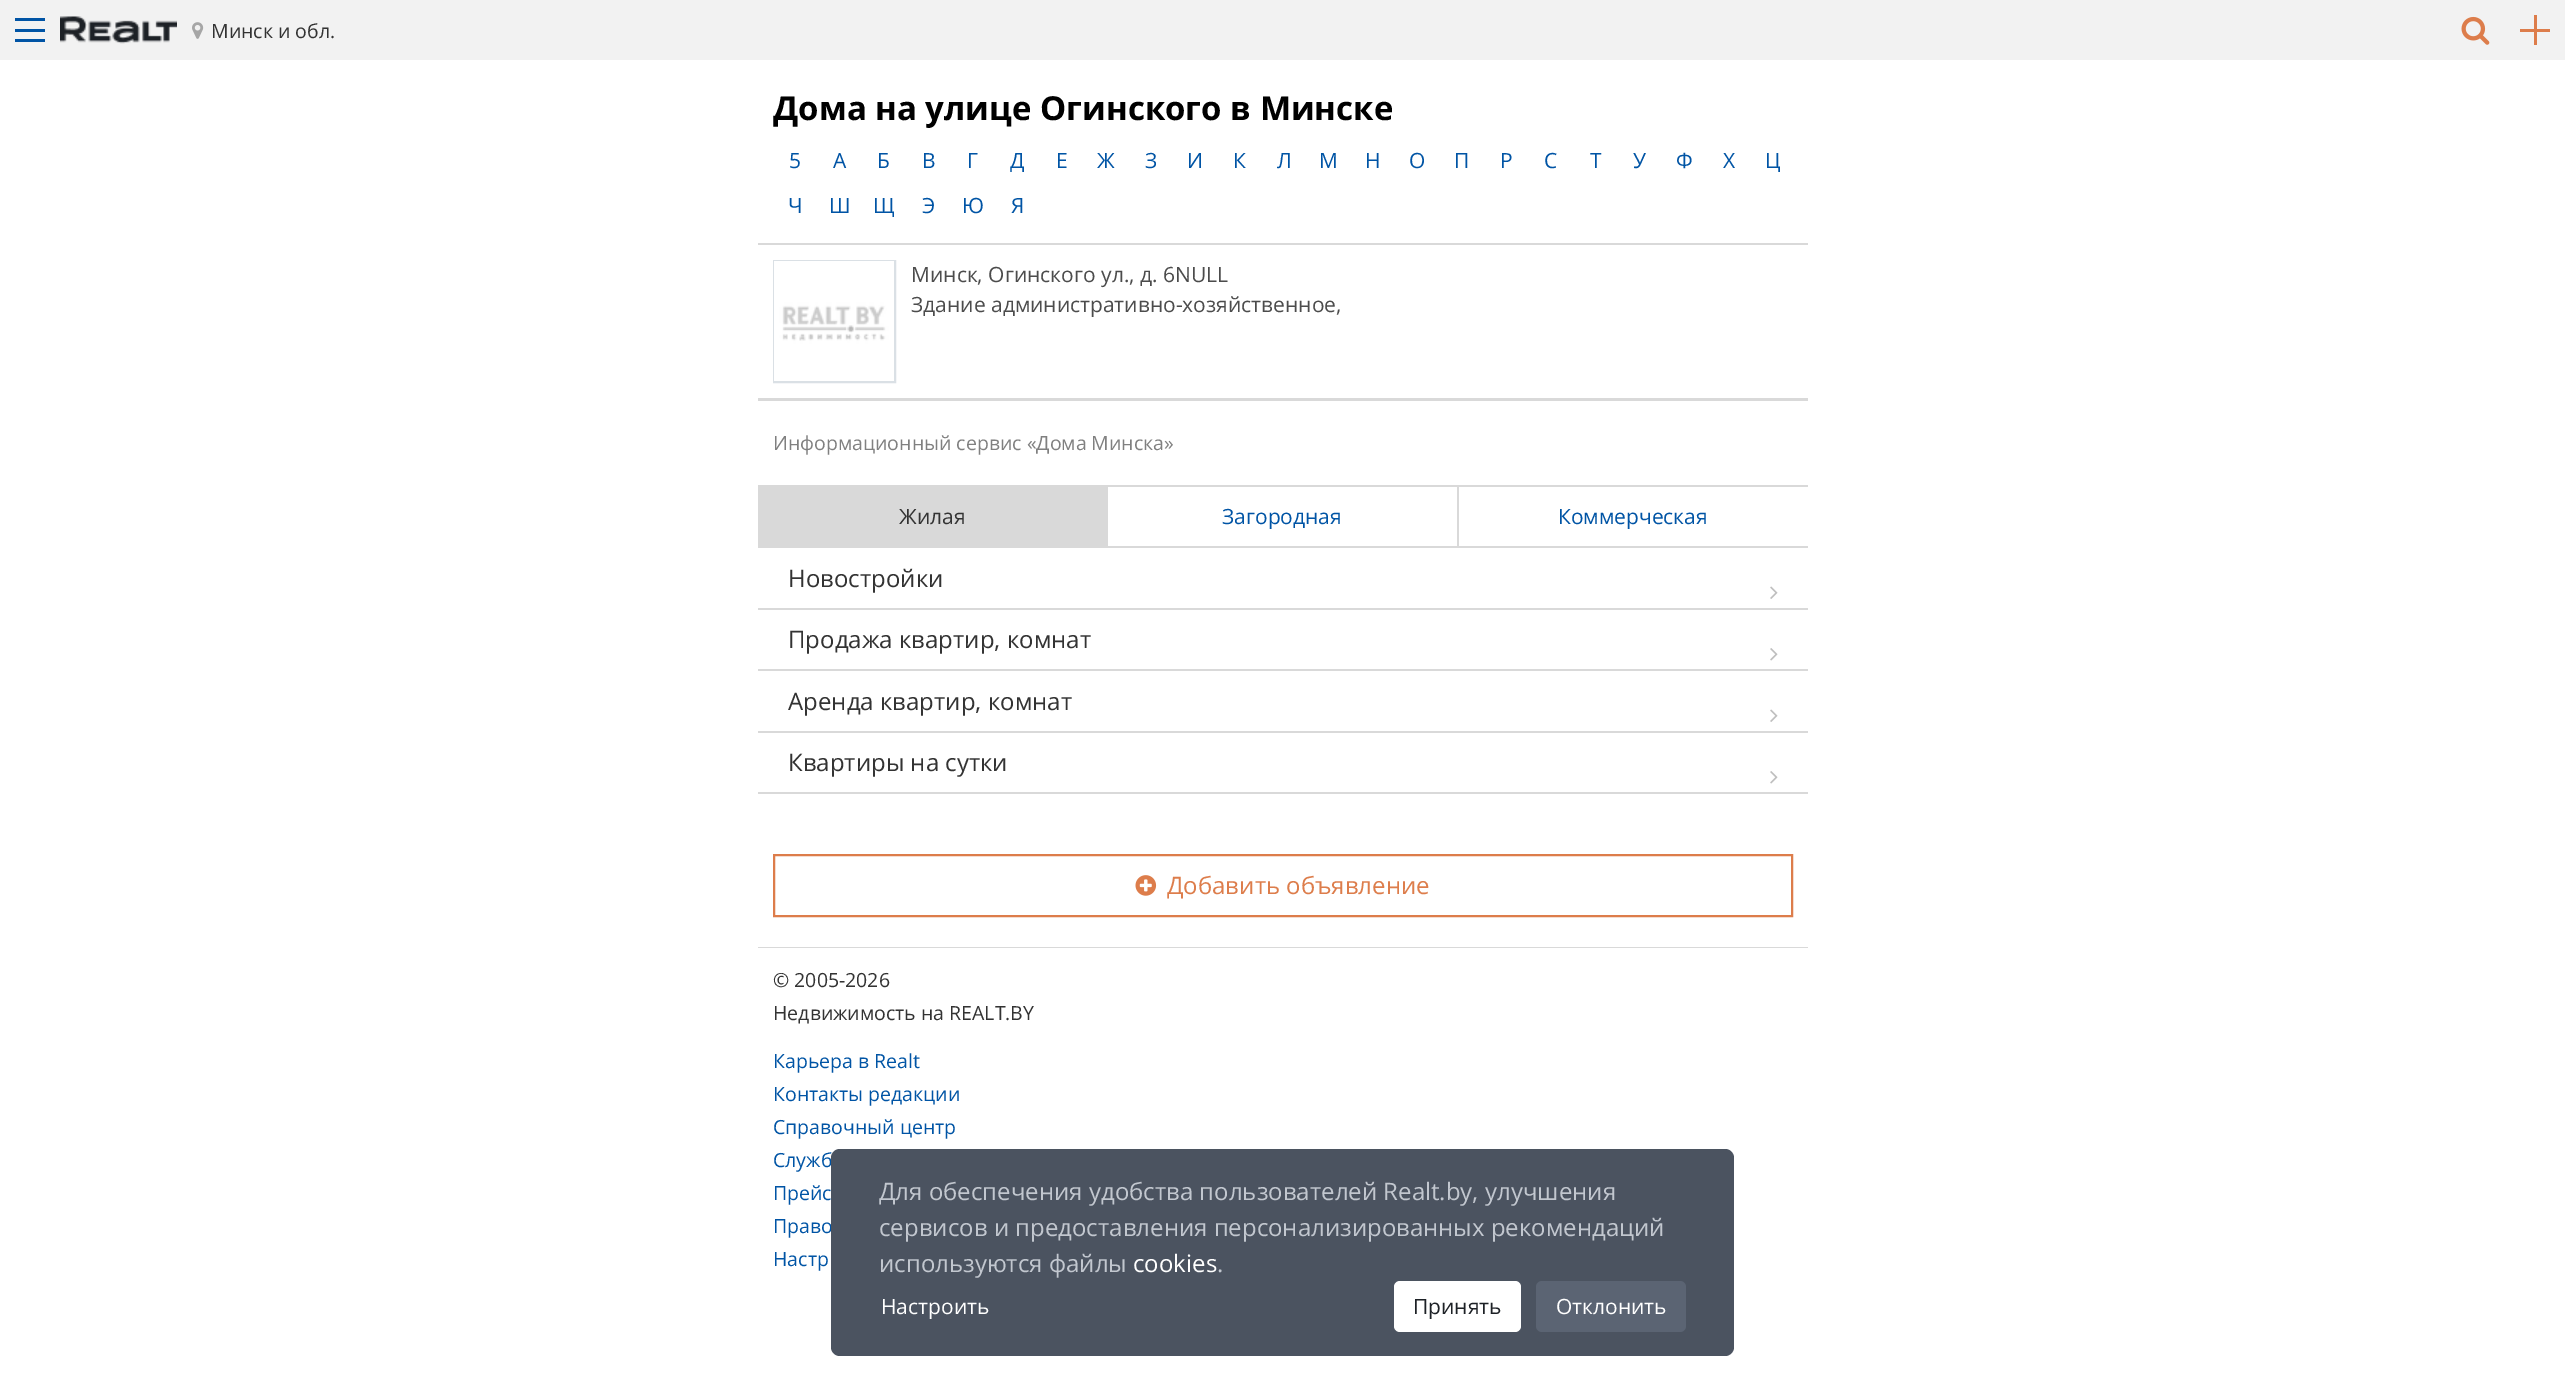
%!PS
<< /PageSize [2565 1385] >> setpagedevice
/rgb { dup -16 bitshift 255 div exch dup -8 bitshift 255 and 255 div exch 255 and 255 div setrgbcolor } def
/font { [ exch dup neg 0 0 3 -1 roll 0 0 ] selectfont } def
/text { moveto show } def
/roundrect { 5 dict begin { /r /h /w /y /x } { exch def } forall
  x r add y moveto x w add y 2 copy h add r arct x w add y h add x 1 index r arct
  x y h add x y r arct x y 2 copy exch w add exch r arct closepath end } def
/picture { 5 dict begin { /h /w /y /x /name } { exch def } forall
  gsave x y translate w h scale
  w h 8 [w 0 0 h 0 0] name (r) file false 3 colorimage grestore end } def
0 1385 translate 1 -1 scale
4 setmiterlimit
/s1 { /OpenSans-Regular 19.5 font 16#333333 rgb } def
/s2 { /OpenSans-Bold 33 font 16#000000 rgb } def
/s3 { /OpenSans-Regular 21 font 16#0054A5 rgb } def
/s4 { /OpenSans-Regular 21 font 16#4C4C4C rgb } def
/s5 { /OpenSans-Regular 19.5 font 16#808080 rgb } def
/s6 { /OpenSans-Regular 21 font 16#333333 rgb } def
/s7 { /OpenSans-Regular 24 font 16#333333 rgb } def
/s8 { /OpenSans-Regular 24 font 16#DD7D4B rgb } def
/s9 { /OpenSans-Regular 19.5 font 16#0054A5 rgb } def
/s10 { /OpenSans-Regular 24 font 16#C2C7CF rgb } def
/s11 { /OpenSans-Regular 24 font 16#FFFFFF rgb } def
/s12 { /OpenSans-Regular 21 font 16#FFFFFF rgb } def
/s13 { /OpenSans-Regular 21 font 16#1D2126 rgb } def
16#FFFFFF rgb
0 0 2565 1385 rectfill
16#F2F2F2 rgb
0 0 2565 60 rectfill
16#0054A5 rgb
15 18 30 3 rectfill
15 29 30 3 rectfill
15 39 30 3 rectfill
(pic1.raw) 60 16 117 28 picture
(pic2.raw) 192 22 12 17 picture
s1
(Минск и обл.) 211 38 text
(pic3.raw) 2461 16 29 29 picture
16#DD7D4B rgb
2520 29 30 3 rectfill
2534 15 3 30 rectfill
s2
(Дома на улице Огинского в Минске) 773 120 text
s3
(5) 789 168 text
(А) 833 168 text
(Б) 877 168 text
(В) 922 168 text
(Г) 967 168 text
(Д) 1010 168 text
(Е) 1056 168 text
(Ж) 1097 168 text
(З) 1145 168 text
(И) 1187 168 text
(К) 1233 168 text
(Л) 1277 168 text
(М) 1319 168 text
(Н) 1365 168 text
(О) 1409 168 text
(П) 1454 168 text
(Р) 1500 168 text
(С) 1544 168 text
(Т) 1590 168 text
(У) 1633 168 text
(Ф) 1676 168 text
(Х) 1723 168 text
(Ц) 1765 168 text
(Ч) 788 213 text
(Ш) 829 213 text
(Щ) 873 213 text
(Э) 922 213 text
(Ю) 962 213 text
(Я) 1011 213 text
16#D9D9D9 rgb
758 243 1050 2 rectfill
758 398 1050 3 rectfill
16#DAE0E5 rgb
2 setlinewidth
774 261 121 121 rectstroke
(pic4.raw) 774 261 120 120 picture
s4
(Минск, Огинского ул., д. 6NULL) 911 282 text
(Здание административно-хозяйственное,) 911 312 text
s5
(Информационный сервис «Дома Минска») 773 450 text
16#D9D9D9 rgb
758 485 1050 2 rectfill
758 546 1050 2 rectfill
758 487 348 59 rectfill
1106 486 2 60 rectfill
s6
(Жилая) 899 524 text
16#D9D9D9 rgb
1457 486 2 60 rectfill
s3
(Загородная) 1222 524 text
(Коммерческая) 1558 524 text
16#D9D9D9 rgb
758 608 1050 2 rectfill
s7
(Новостройки) 788 587 text
(pic5.raw) 1770 586 8 13 picture
16#D9D9D9 rgb
758 669 1050 2 rectfill
s7
(Продажа квартир, комнат) 788 648 text
(pic6.raw) 1770 648 8 13 picture
16#D9D9D9 rgb
758 731 1050 2 rectfill
s7
(Аренда квартир, комнат) 788 710 text
(pic5.raw) 1770 709 8 13 picture
16#D9D9D9 rgb
758 792 1050 2 rectfill
s7
(Квартиры на сутки) 788 771 text
(pic6.raw) 1770 771 8 13 picture
16#D9D9D9 rgb
758 947 1050 1 rectfill
16#DD7D4B rgb
774 855 1018 61 rectstroke
(pic7.raw) 1135 875 22 21 picture
(Добавить объявление) 1167 894 text
s1
(© 2005-2026) 773 987 text
(Недвижимость на REALT.BY) 773 1020 text
s9
(Карьера в Realt) 773 1068 text
(Контакты редакции) 773 1101 text
(Справочный центр) 773 1134 text
(Служб) 773 1167 text
(Прейс) 773 1200 text
(Право) 773 1233 text
(Настр) 773 1266 text
16#4B5360 rgb
831 1149 903 207 9 roundrect fill
s10
(Для обеспечения удобства пользователей Realt.by, улучшения) 879 1200 text
(сервисов и предоставления персонализированных рекомендаций) 879 1236 text
(используются файлы) 879 1272 text
s11
(cookies) 1133 1272 text
s10
(.) 1217 1272 text
s12
(Настроить) 881 1314 text
1394 1281 127 51 6 roundrect fill
s13
(Принять) 1413 1314 text
16#5B6473 rgb
1536 1281 150 51 6 roundrect fill
s12
(Отклонить) 1556 1314 text
showpage
